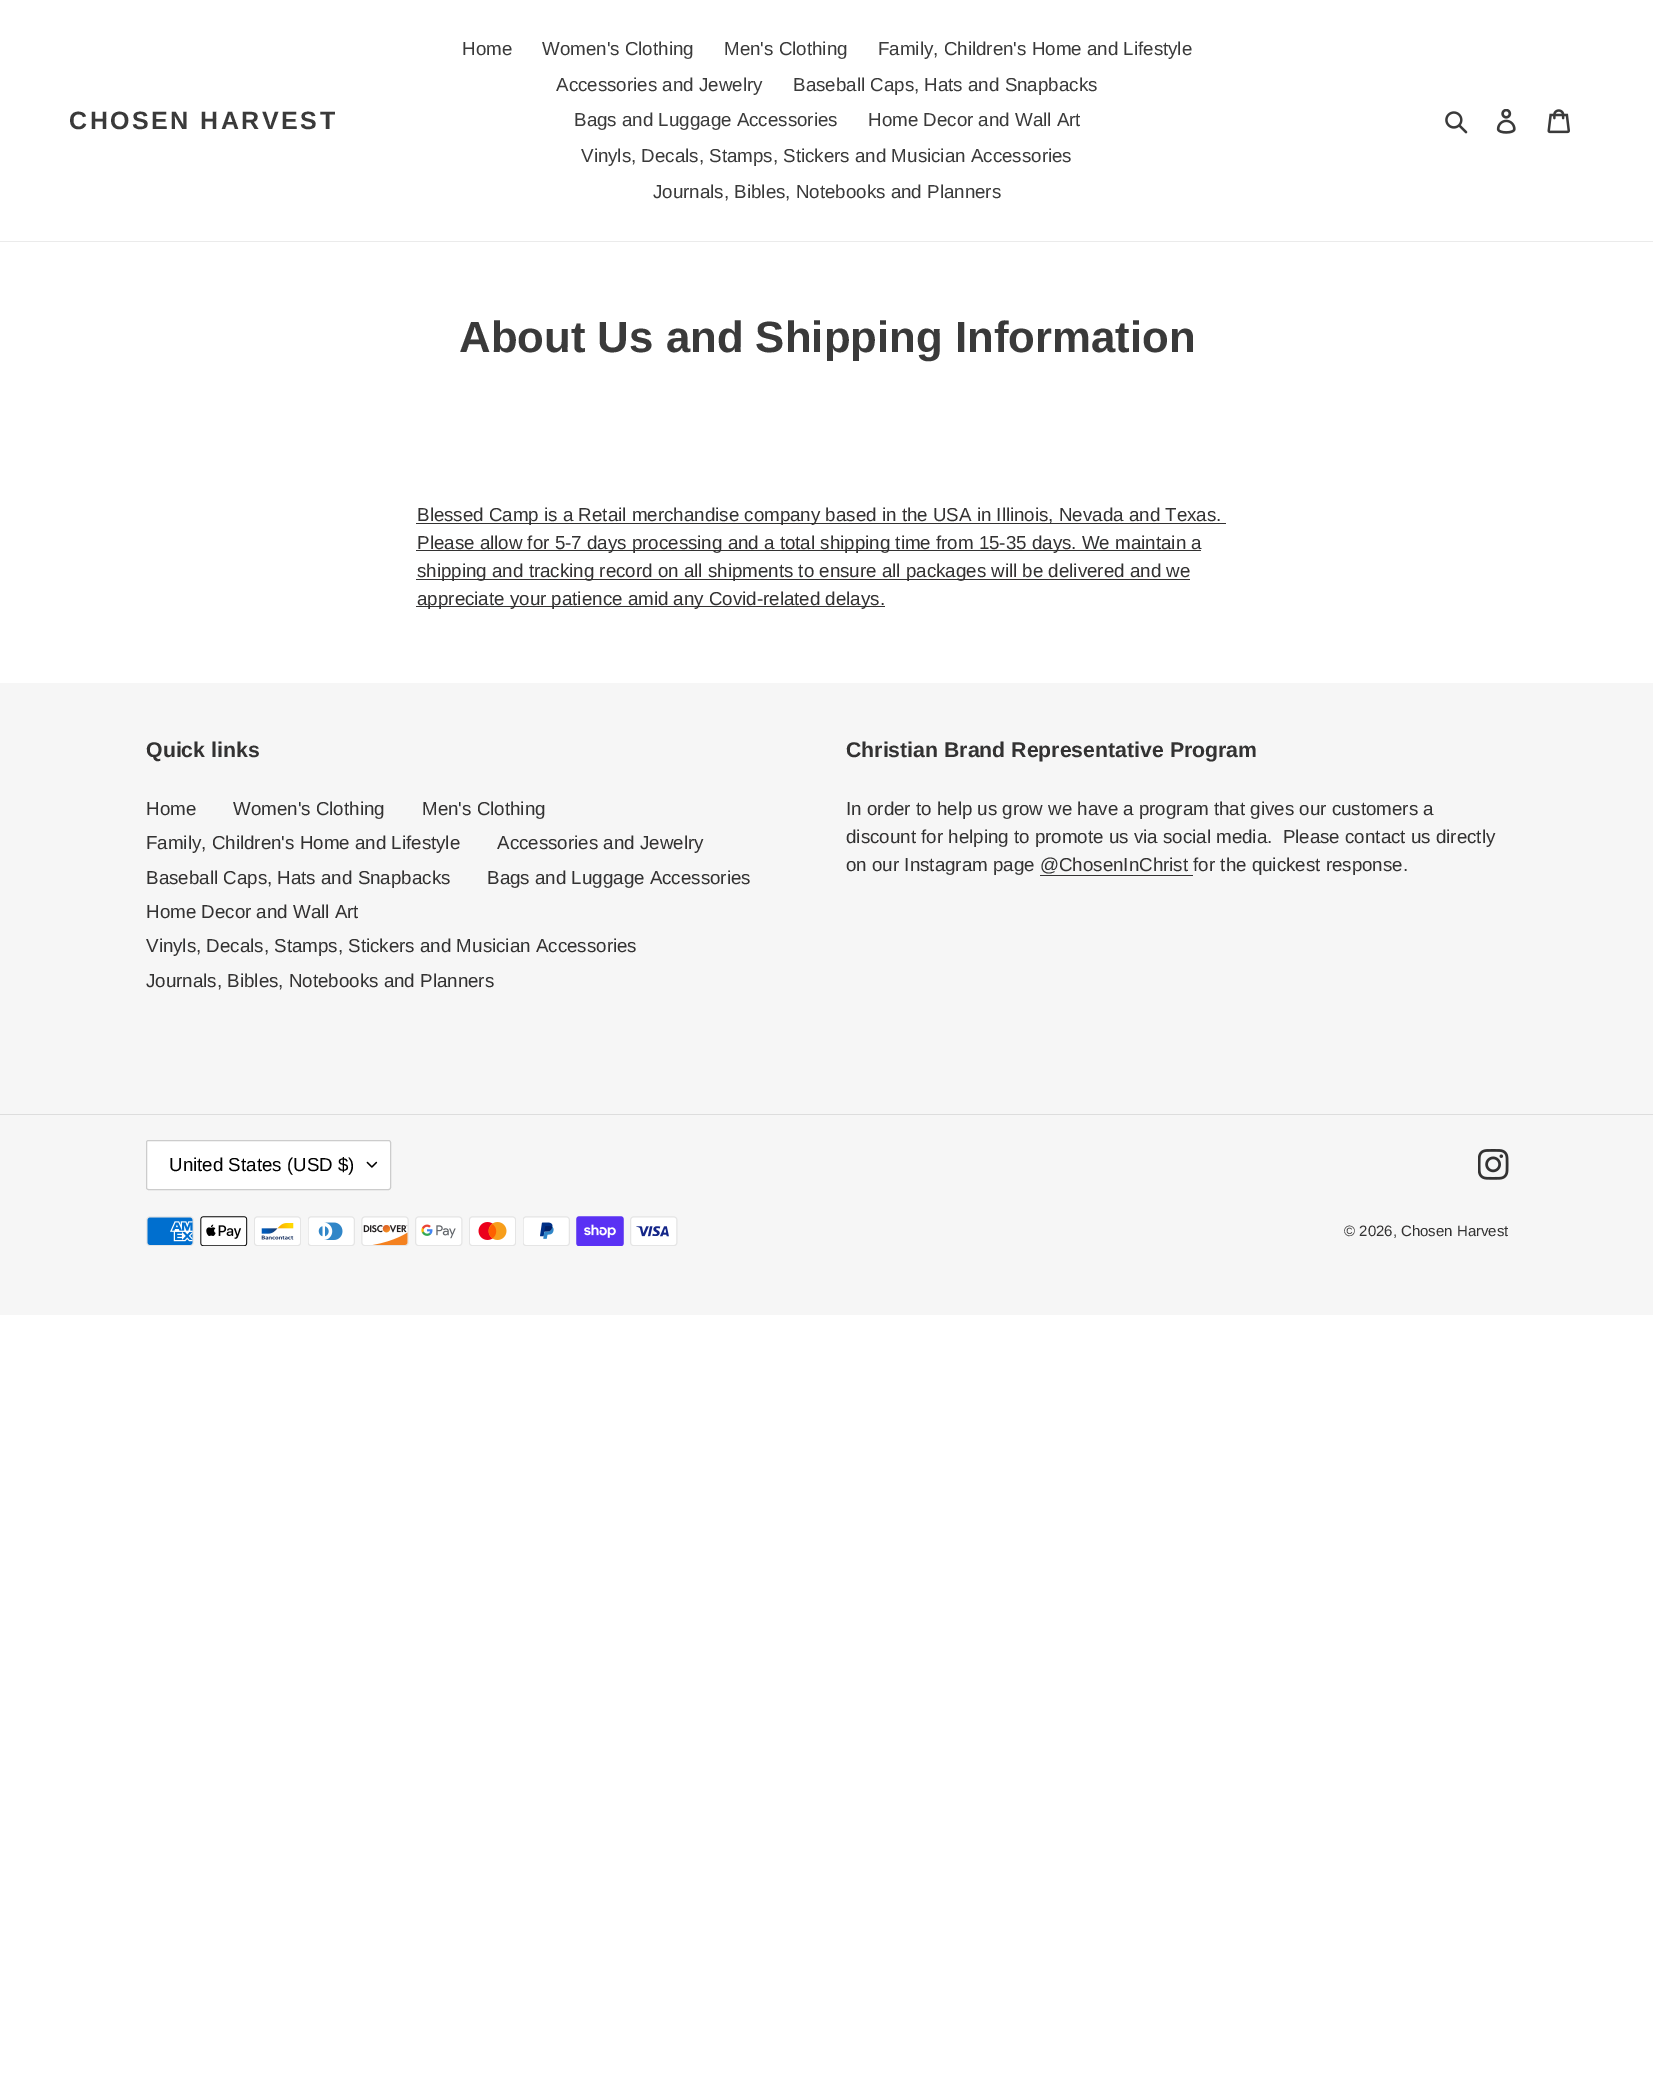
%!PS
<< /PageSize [1653 2090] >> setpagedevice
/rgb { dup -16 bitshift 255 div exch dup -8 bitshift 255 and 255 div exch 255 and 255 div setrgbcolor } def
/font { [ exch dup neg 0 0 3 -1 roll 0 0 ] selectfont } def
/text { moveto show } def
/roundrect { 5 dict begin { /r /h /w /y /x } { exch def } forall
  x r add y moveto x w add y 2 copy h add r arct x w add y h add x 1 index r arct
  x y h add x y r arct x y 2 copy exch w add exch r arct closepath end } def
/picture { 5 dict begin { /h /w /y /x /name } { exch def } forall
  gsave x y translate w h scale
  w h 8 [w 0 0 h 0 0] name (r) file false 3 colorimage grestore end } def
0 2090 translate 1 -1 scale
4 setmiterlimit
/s1 { /LiberationSans-Regular 18.75 font 16#3A3A3A rgb } def
/s2 { /LiberationSans-Bold 43.75 font 16#3A3A3A rgb } def
/s3 { /LiberationSans-Regular 18.75 font 16#333232 rgb } def
/s4 { /LiberationSans-Bold 21.25 font 16#333232 rgb } def
/s5 { /LiberationSans-Regular 18.75 font 16#000000 rgb } def
/s6 { /LiberationSans-Regular 15 font 16#333232 rgb } def
16#FFFFFF rgb
0 0 1653 2090 rectfill
16#EBEBEB rgb
0 241 1653 1 rectfill
/LiberationSans-Bold 25 font
16#3A3A3A rgb
69 129 moveto 2.5 0 (CHOSEN HARVEST) ashow
s1
(Home) 462 55 text
(Women's Clothing) 542 55 text
(Men's Clothing) 724 55 text
(Family, Children's Home and Lifestyle) 878 55 text
(Accessories and Jewelry) 556 91 text
(Baseball Caps, Hats and Snapbacks) 793 91 text
(Bags and Luggage Accessories) 574 126 text
(Home Decor and Wall Art) 868 126 text
(Vinyls, Decals, Stamps, Stickers and Musician Accessories) 581 162 text
(Journals, Bibles, Notebooks and Planners) 653 198 text
(pic1.raw) 1445 111 23 23 picture
(pic2.raw) 1496 109 20 25 picture
(pic3.raw) 1547 109 23 25 picture
s2
(About Us and Shipping Information) 459 352 text
16#333232 rgb
416 523 810 1 rectfill
s3
(Blessed Camp is a Retail merchandise company based in the USA in Illinois, Nevada and Texas.) 417 521 text
416 550 785 1 rectfill
(Please allow for 5-7 days processing and a total shipping time from 15-35 days. We maintain a) 417 549 text
416 579 774 1 rectfill
(shipping and tracking record on all shipments to ensure all packages will be delivered and we) 417 577 text
416 606 469 1 rectfill
(appreciate your patience amid any Covid-related delays.) 417 605 text
16#F6F6F6 rgb
0 683 1653 632 rectfill
s4
(Quick links) 146 757 text
s3
(Home) 146 815 text
(Women's Clothing) 233 815 text
(Men's Clothing) 422 815 text
(Family, Children's Home and Lifestyle) 146 849 text
(Accessories and Jewelry) 497 849 text
(Baseball Caps, Hats and Snapbacks) 146 884 text
(Bags and Luggage Accessories) 487 884 text
(Home Decor and Wall Art) 146 918 text
(Vinyls, Decals, Stamps, Stickers and Musician Accessories) 146 952 text
(Journals, Bibles, Notebooks and Planners) 146 987 text
s4
(Christian Brand Representative Program) 846 757 text
s3
(In order to help us grow we have a program that gives our customers a) 846 815 text
(discount for helping to promote us via social media.  Please contact us directly) 846 843 text
(on our Instagram page @ChosenInChrist for the quickest response.) 846 871 text
1040 875 153 1 rectfill
16#DDDDDD rgb
0 1114 1653 1 rectfill
16#FFFFFF rgb
146 1140 245 50 2.5 roundrect fill
(pic4.raw) 366 1161 12 7 picture
16#CCCCCC rgb
146.5 1140.5 244 49 2 roundrect stroke
s5
(United States \(USD $\)) 169 1171 text
(pic5.raw) 1478 1149 31 31 picture
(pic6.raw) 146 1216 48 30 picture
(pic7.raw) 200 1216 48 30 picture
(pic8.raw) 254 1216 47 30 picture
(pic9.raw) 308 1216 47 30 picture
(pic10.raw) 361 1216 48 30 picture
(pic11.raw) 415 1216 48 30 picture
(pic12.raw) 469 1216 47 30 picture
(pic13.raw) 523 1216 47 30 picture
(pic14.raw) 576 1216 48 30 picture
(pic15.raw) 630 1216 48 30 picture
s6
(© 2026, Chosen Harvest) 1344 1236 text
showpage
